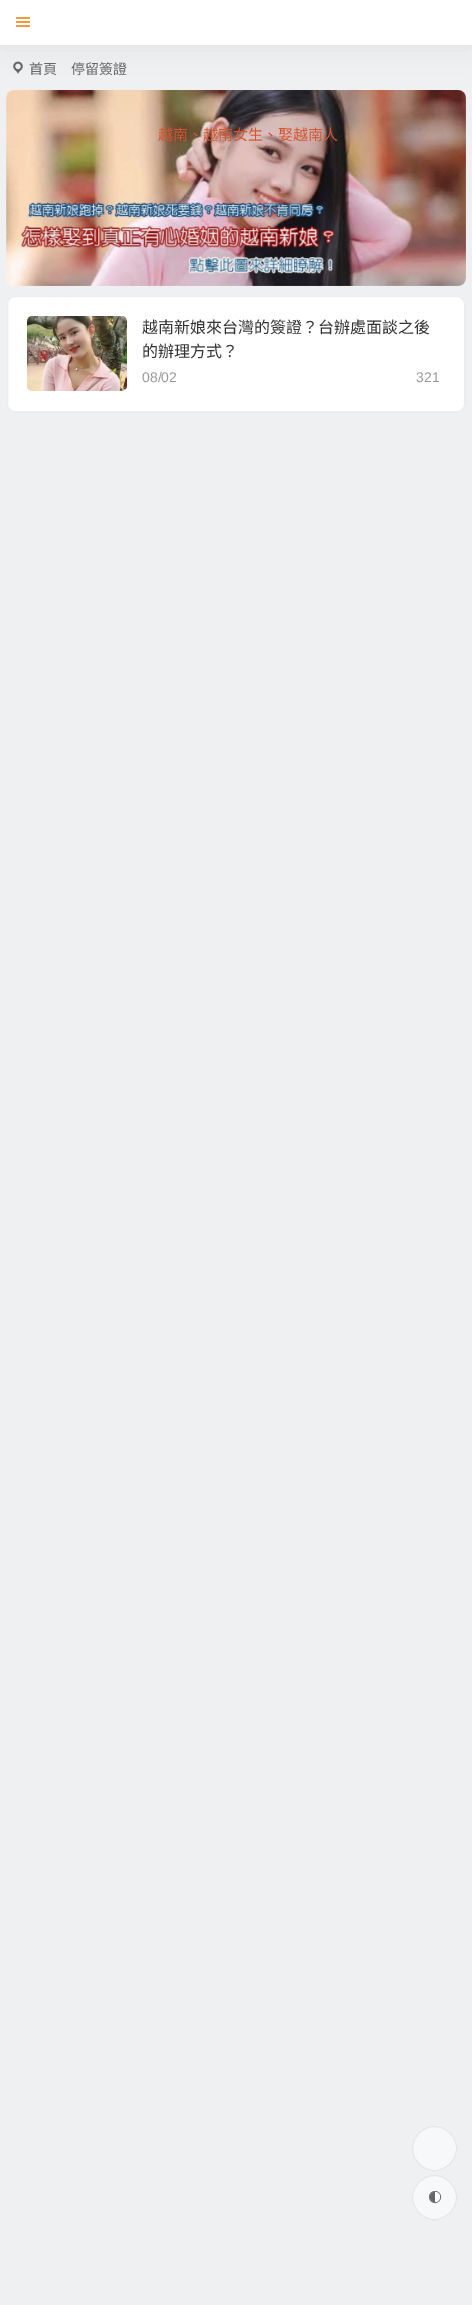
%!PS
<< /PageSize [472 2305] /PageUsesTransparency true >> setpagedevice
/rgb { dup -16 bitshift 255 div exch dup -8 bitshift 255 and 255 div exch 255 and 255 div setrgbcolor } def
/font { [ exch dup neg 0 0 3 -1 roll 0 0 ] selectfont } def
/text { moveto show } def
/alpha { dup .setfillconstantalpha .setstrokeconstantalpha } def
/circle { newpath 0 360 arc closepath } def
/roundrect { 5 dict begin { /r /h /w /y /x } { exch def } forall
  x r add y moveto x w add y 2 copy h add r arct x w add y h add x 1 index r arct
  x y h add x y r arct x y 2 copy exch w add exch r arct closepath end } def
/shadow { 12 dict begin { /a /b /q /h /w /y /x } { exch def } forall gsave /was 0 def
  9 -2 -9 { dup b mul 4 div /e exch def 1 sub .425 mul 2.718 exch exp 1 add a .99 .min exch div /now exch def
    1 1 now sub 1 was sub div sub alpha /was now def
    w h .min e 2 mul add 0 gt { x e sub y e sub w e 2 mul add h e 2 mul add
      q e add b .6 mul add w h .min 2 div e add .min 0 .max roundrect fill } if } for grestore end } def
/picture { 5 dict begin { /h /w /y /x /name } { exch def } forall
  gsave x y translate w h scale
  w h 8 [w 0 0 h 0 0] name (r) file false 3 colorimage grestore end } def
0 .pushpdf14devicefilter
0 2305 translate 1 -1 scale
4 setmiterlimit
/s1 { /NotoSansCJKTC-Regular 14 font 16#666666 rgb } def
/s2 { /NotoSansCJKTC-Regular 15 font 16#D35630 rgb } def
/s3 { /NotoSansCJKTC-Regular 16 font 16#333333 rgb } def
/s4 { /LiberationSans-Regular 14 font 16#999999 rgb } def
16#EFF0F2 rgb
0 0 472 2305 rectfill
(pic1.raw) 13 61 10 13 picture
s1
(首頁) 29 74 text
(停留簽證) 71 74 text
16#FFFFFF rgb
6 90 460 196 8 roundrect fill
(pic2.raw) 6 90 460 196 picture
16#000000 rgb
0 3 472 45 0 15 0.06 shadow
16#FFFFFF rgb
0 0 472 45 rectfill
16#F79838 rgb
16 21 14 2 1 roundrect fill
16 17 14 2 1 roundrect fill
16 25 14 2 1 roundrect fill
s2
(越南、越南女生、娶越南人) 158 140 text
16#FFFFFF rgb
7 296 458 116 8 roundrect fill
0.07 alpha
16#000000 rgb
7.5 296.5 457 115 7.5 roundrect stroke
1 alpha
(pic3.raw) 27 316 100 75 picture
s3
(越南新娘來台灣的簽證？台辦處面談之後) 142 333 text
(的辦理方式？) 142 357 text
s4
(08/02) 142 382 text
(321) 416 382 text
16#F7F8F9 rgb
434.5 2148.5 22.5 circle fill
0.07 alpha
16#000000 rgb
434.5 2148.5 22 circle stroke
1 alpha
16#F7F8F9 rgb
434.5 2197.5 22.5 circle fill
0.07 alpha
16#000000 rgb
434.5 2197.5 22 circle stroke
1 alpha
16#666666 rgb
435 2197 5.5 circle gsave fill grestore
16#777777 rgb
stroke
16#FFFFFF rgb
435 2192 moveto 438 2192 440 2194 440 2197 curveto 440 2200 438 2202 435 2202 curveto closepath fill
.poppdf14devicefilter showpage
